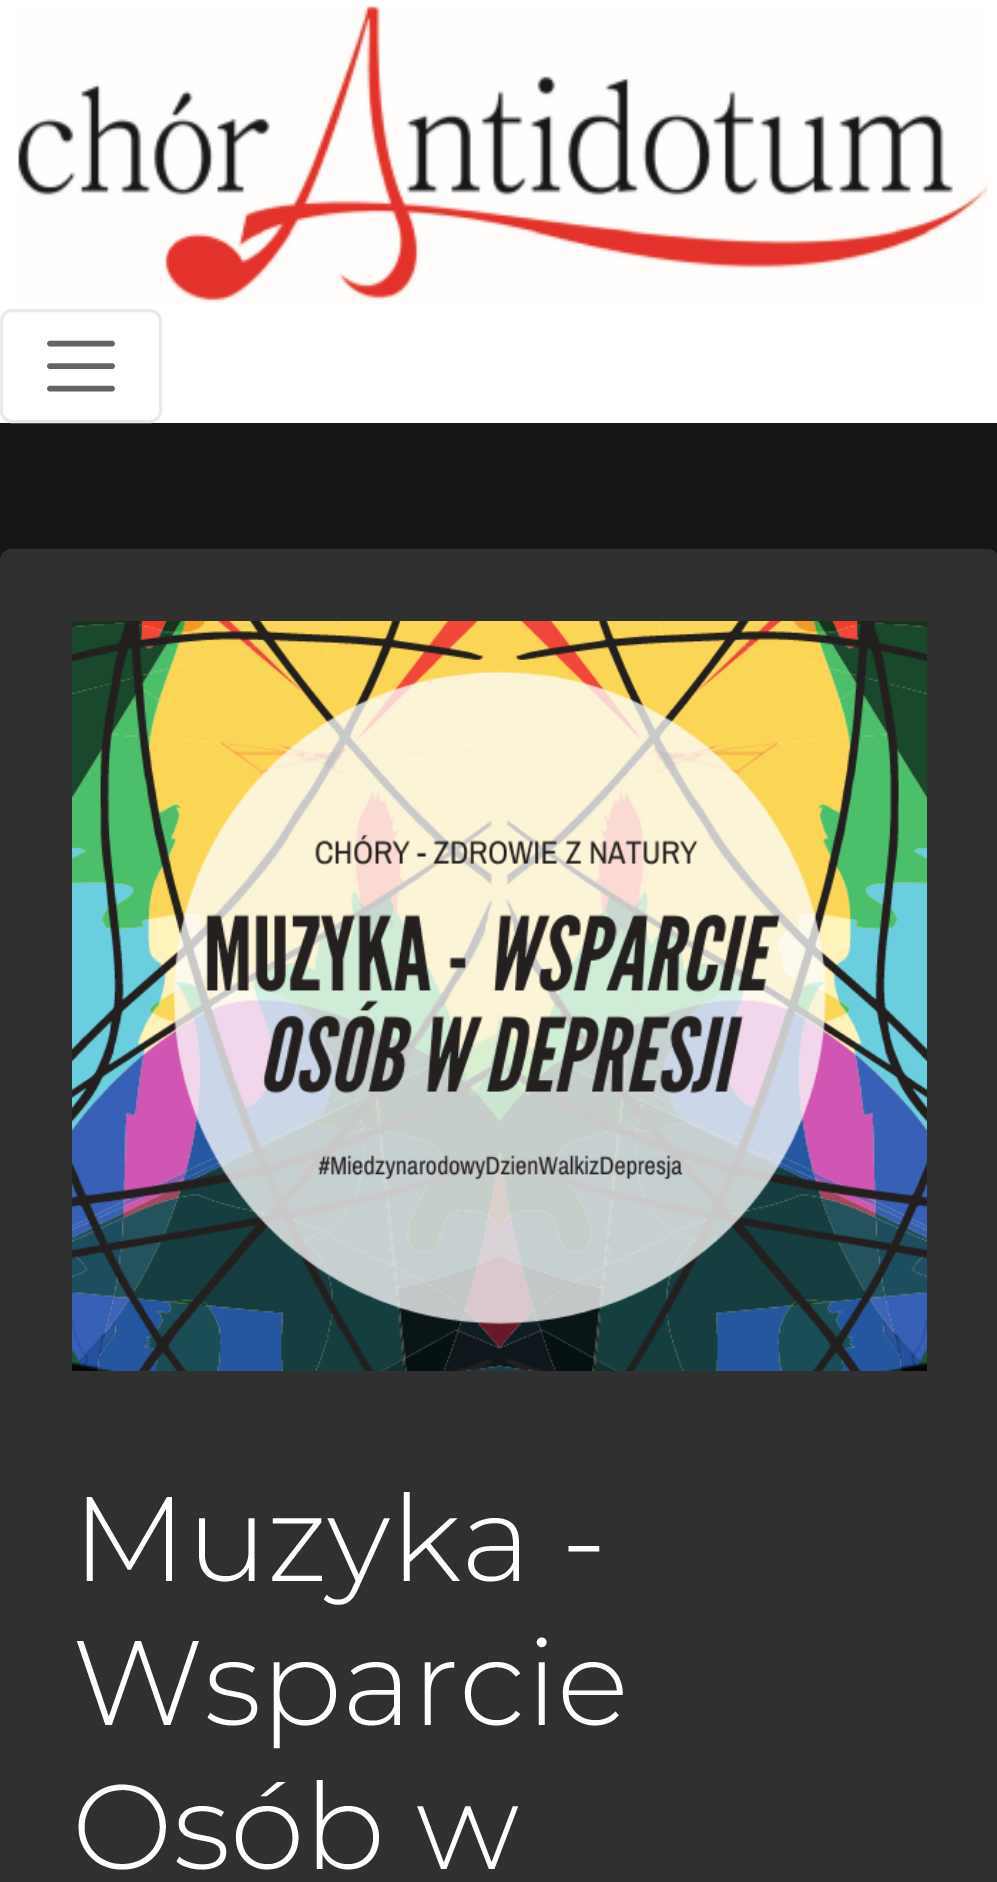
%!PS
<< /PageSize [997 1882] >> setpagedevice
/rgb { dup -16 bitshift 255 div exch dup -8 bitshift 255 and 255 div exch 255 and 255 div setrgbcolor } def
/font { [ exch dup neg 0 0 3 -1 roll 0 0 ] selectfont } def
/text { moveto show } def
/roundrect { 5 dict begin { /r /h /w /y /x } { exch def } forall
  x r add y moveto x w add y 2 copy h add r arct x w add y h add x 1 index r arct
  x y h add x y r arct x y 2 copy exch w add exch r arct closepath end } def
/picture { 5 dict begin { /h /w /y /x /name } { exch def } forall
  gsave x y translate w h scale
  w h 8 [w 0 0 h 0 0] name (r) file false 3 colorimage grestore end } def
0 1882 translate 1 -1 scale
4 setmiterlimit
/s1 { /Montserrat-Thin 120 font 16#FFFFFF rgb } def
16#161616 rgb
0 0 997 1882 rectfill
16#FFFFFF rgb
0 0 997 423 rectfill
(pic1.raw) 18 6 970 298 picture
16#E9E9E9 rgb
3 setlinewidth
1.5 310.5 159 111 10.5 roundrect stroke
16#646464 rgb
5.6 setlinewidth
1 setlinecap
50 343.5 moveto 112 343.5 lineto 50 366 moveto 112 366 lineto 50 388.5 moveto 112 388.5 lineto stroke
16#303030 rgb
0 549 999 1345 12 roundrect fill
(pic2.raw) 72 621 855 750 picture
s1
(Muzyka -) 72 1581 text
(Wsparcie) 72 1725 text
(Osób w) 72 1869 text
showpage
